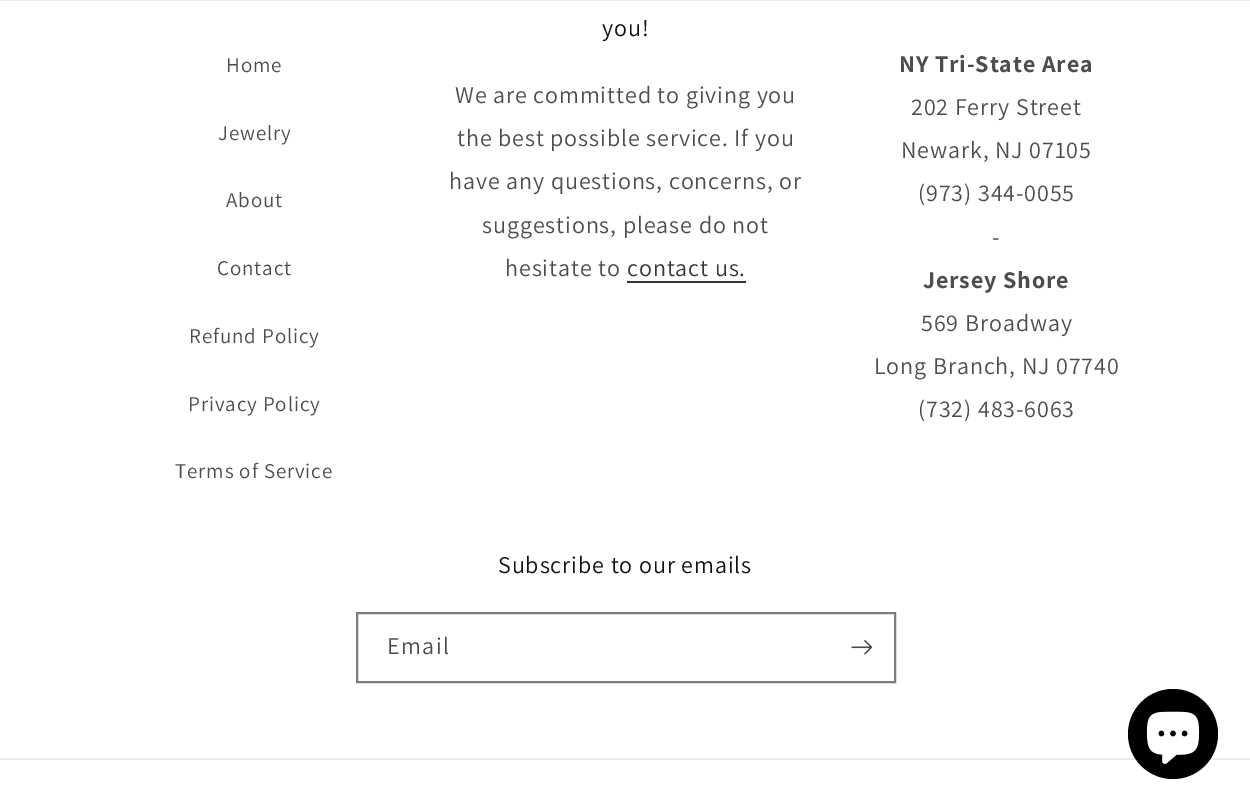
%!PS
<< /PageSize [1250 810] /PageUsesTransparency true >> setpagedevice
/rgb { dup -16 bitshift 255 div exch dup -8 bitshift 255 and 255 div exch 255 and 255 div setrgbcolor } def
/font { [ exch dup neg 0 0 3 -1 roll 0 0 ] selectfont } def
/alpha { dup .setfillconstantalpha .setstrokeconstantalpha } def
/circle { newpath 0 360 arc closepath } def
/picture { 5 dict begin { /h /w /y /x /name } { exch def } forall
  gsave x y translate w h scale
  w h 8 [w 0 0 h 0 0] name (r) file false 3 colorimage grestore end } def
0 .pushpdf14devicefilter
0 810 translate 1 -1 scale
4 setmiterlimit
16#FFFFFF rgb
0 0 1250 810 rectfill
0.08 alpha
16#121212 rgb
0 0 1250 1 rectfill
/Assistant-Regular 21 font
1 alpha
16#4D4D4D rgb
226 72 moveto 0.9 0 (Home) ashow
218 140 moveto 0.9 0 (Jewelry) ashow
226 207 moveto 0.9 0 (About) ashow
217 275 moveto 0.9 0 (Contact) ashow
189 343 moveto 0.9 0 (Refund Policy) ashow
188 411 moveto 0.9 0 (Privacy Policy) ashow
175 478 moveto 0.9 0 (Terms of Service) ashow
/Assistant-Regular 24 font
16#121212 rgb
602 36 moveto 0.9 0 (you!) ashow
16#4D4D4D rgb
455 103 moveto 0.9 0 (We are committed to giving you) ashow
457 146 moveto 0.9 0 (the best possible service. If you) ashow
449 189 moveto 0.9 0 (have any questions, concerns, or) ashow
482 233 moveto 0.9 0 (suggestions, please do not) ashow
505 276 moveto 0.9 0 (hesitate to) ashow
16#363636 rgb
627 276 moveto 0.9 0 (contact us.) ashow
627 281 119 2 rectfill
/Assistant-Bold 24 font
16#4D4D4D rgb
899 72 moveto 0.9 0 (NY Tri-State Area) ashow
/Assistant-Regular 24 font
911 115 moveto 0.9 0 (202 Ferry Street) ashow
901 158 moveto 0.9 0 (Newark, NJ 07105) ashow
918 201 moveto 0.9 0 (\(973\) 344-0055) ashow
992 245 moveto 0.9 0 (-) ashow
/Assistant-Bold 24 font
923 288 moveto 0.9 0 (Jersey Shore) ashow
/Assistant-Regular 24 font
921 331 moveto 0.9 0 (569 Broadway) ashow
874 374 moveto 0.9 0 (Long Branch, NJ 07740) ashow
918 417 moveto 0.9 0 (\(732\) 483-6063) ashow
16#121212 rgb
498 573 moveto 0.9 0 (Subscribe to our emails) ashow
16#7D7D7D rgb
2 setlinewidth
357 613 538 69 rectstroke
16#4D4D4D rgb
387 654 moveto 1.5 0 (Email) ashow
(pic1.raw) 851 640 22 15 picture
16#ECECEC rgb
0 758 1250 2 rectfill
16#000000 rgb
1173 734 45 circle fill
(pic2.raw) 1146 711 54 53 picture
.poppdf14devicefilter showpage
